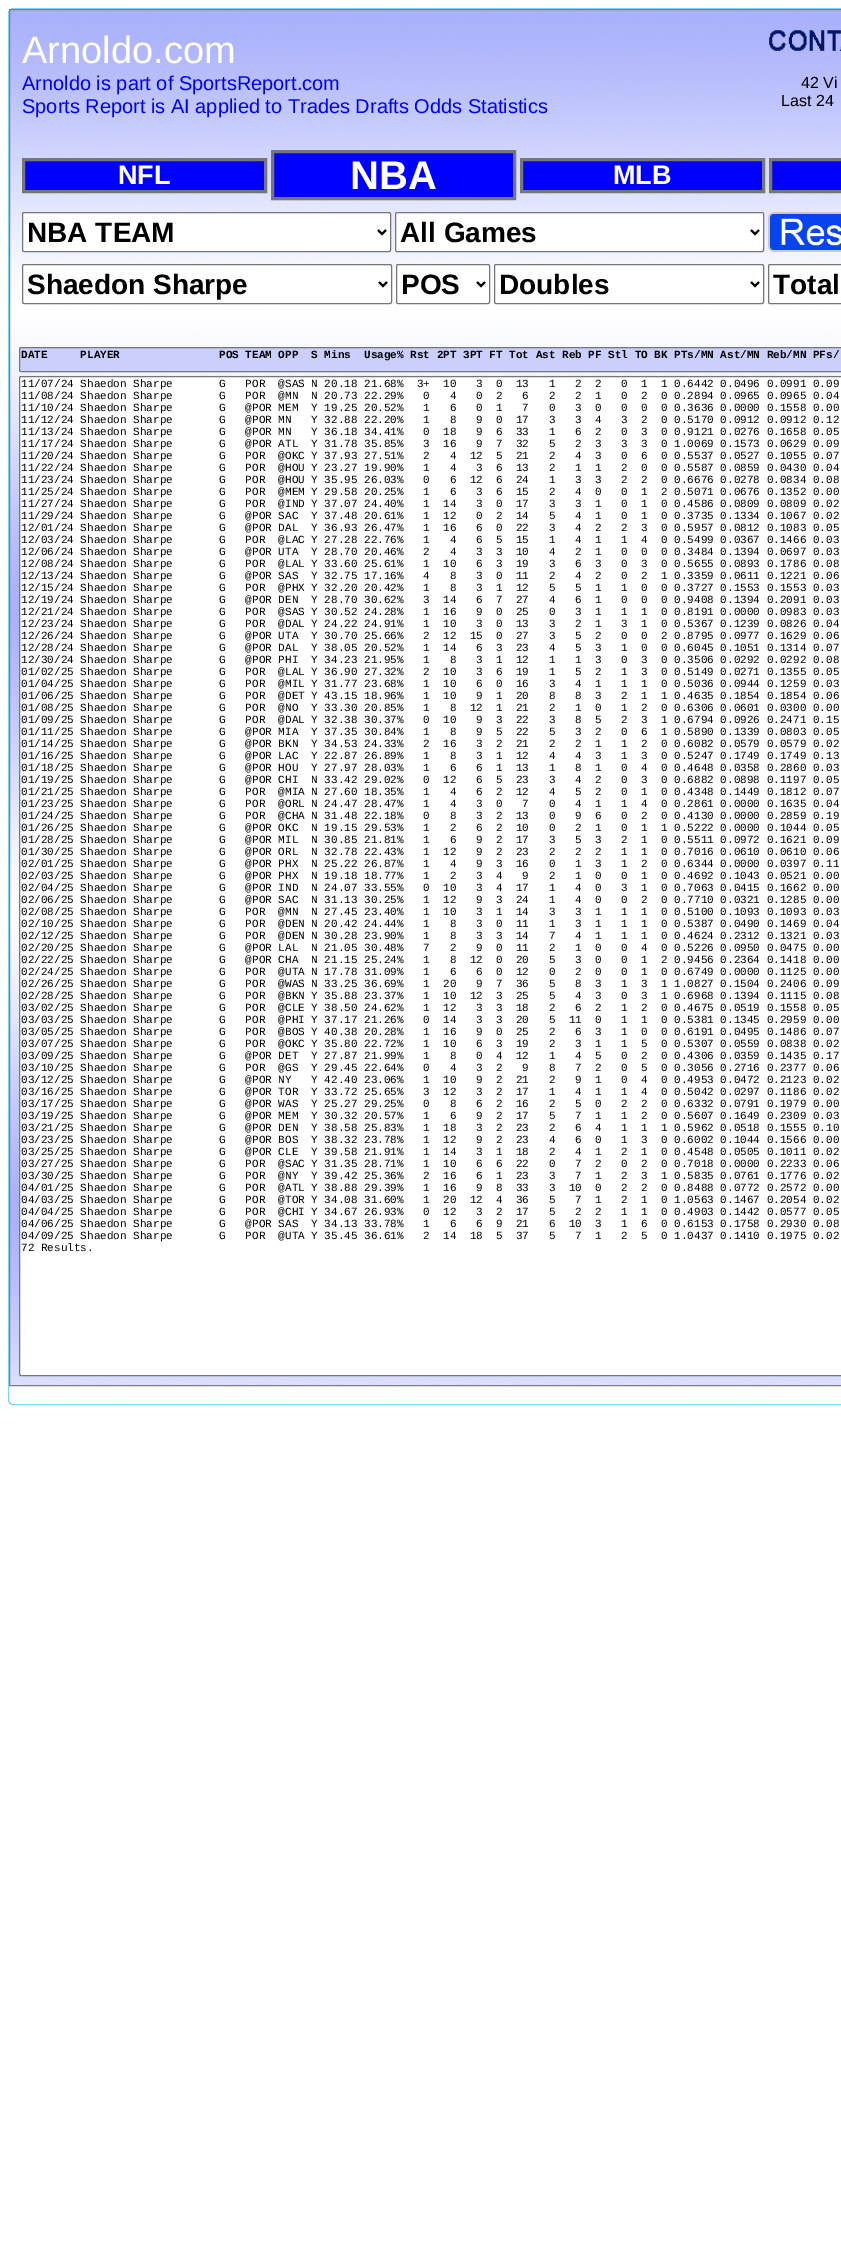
%!PS
<< /PageSize [841 2250] >> setpagedevice
/rgb { dup -16 bitshift 255 div exch dup -8 bitshift 255 and 255 div exch 255 and 255 div setrgbcolor } def
/font { [ exch dup neg 0 0 3 -1 roll 0 0 ] selectfont } def
/text { moveto show } def
/roundrect { 5 dict begin { /r /h /w /y /x } { exch def } forall
  x r add y moveto x w add y 2 copy h add r arct x w add y h add x 1 index r arct
  x y h add x y r arct x y 2 copy exch w add exch r arct closepath end } def
/picture { 5 dict begin { /h /w /y /x /name } { exch def } forall
  gsave x y translate w h scale
  w h 8 [w 0 0 h 0 0] name (r) file false 3 colorimage grestore end } def
0 2250 translate 1 -1 scale
4 setmiterlimit
/s1 { /LiberationSans-Regular 38 font 16#FFFFFF rgb } def
/s2 { /LiberationSans-Regular 20 font 16#0000FF rgb } def
/s3 { /LiberationSans-Regular 16 font 16#000000 rgb } def
/s4 { /LiberationSans-Bold 27 font 16#FFFFFF rgb } def
/s5 { /LiberationSans-Bold 40 font 16#FFFFFF rgb } def
/s6 { /LiberationSans-Bold 28 font 16#000000 rgb } def
/s7 { /LiberationMono-Bold 11 font 16#000000 rgb } def
/s8 { /LiberationMono-Regular 11 font 16#000000 rgb } def
16#FFFFFF rgb
0 0 841 2250 rectfill
16#FCFDFD rgb
8.5 8.5 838 1396 4.5 roundrect gsave fill grestore
16#77D5F7 rgb
stroke
(pic1.raw) 10 10 831 1375 picture
16#808080 rgb
9.5 9.5 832 1376 rectstroke
s1
(Arnoldo.com) 22 63 text
s2
(Arnoldo is part of SportsReport.com) 22 90 text
(Sports Report is AI applied to Trades Drafts Odds Statistics) 22 113 text
(pic2.raw) 769 30 72 21 picture
s3
(42 Vi) 801 88 text
(Last 24) 781 106 text
16#0000FF rgb
23.5 159.5 moveto 265.5 159.5 lineto 265.5 191.5 lineto 23.5 191.5 lineto closepath gsave fill grestore
16#767676 rgb
3 setlinewidth
stroke
s4
(NFL) 118 184 text
16#0000FF rgb
272.5 151.5 moveto 514.5 151.5 lineto 514.5 198.5 lineto 272.5 198.5 lineto closepath gsave fill grestore
16#767676 rgb
stroke
s5
(NBA) 350 189 text
16#0000FF rgb
521.5 159.5 moveto 763.5 159.5 lineto 763.5 191.5 lineto 521.5 191.5 lineto closepath gsave fill grestore
16#767676 rgb
stroke
s4
(MLB) 613 184 text
16#0000FF rgb
770.5 159.5 moveto 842.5 159.5 lineto 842.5 191.5 lineto 770.5 191.5 lineto closepath gsave fill grestore
16#767676 rgb
stroke
16#FFFFFF rgb
22.5 212.5 368 39 1.5 roundrect gsave fill grestore
16#767676 rgb
1 setlinewidth
stroke
16#000000 rgb
2 setlinewidth
378 230 moveto 382 234 lineto 386 230 lineto stroke
s6
(NBA TEAM) 27 242 text
16#FFFFFF rgb
395.5 212.5 368 39 1.5 roundrect gsave fill grestore
16#767676 rgb
1 setlinewidth
stroke
16#000000 rgb
2 setlinewidth
751 230 moveto 755 234 lineto 759 230 lineto stroke
(All Games) 400 242 text
(pic3.raw) 768 212 73 40 picture
16#FFFFFF rgb
22.5 264.5 369 39 1.5 roundrect gsave fill grestore
16#767676 rgb
1 setlinewidth
stroke
16#000000 rgb
2 setlinewidth
379 282 moveto 383 286 lineto 387 282 lineto stroke
(Shaedon Sharpe) 27 294 text
16#FFFFFF rgb
396.5 264.5 93 39 1.5 roundrect gsave fill grestore
16#767676 rgb
1 setlinewidth
stroke
16#000000 rgb
2 setlinewidth
477 282 moveto 481 286 lineto 485 282 lineto stroke
(POS) 401 294 text
16#FFFFFF rgb
494.5 264.5 269 39 1.5 roundrect gsave fill grestore
16#767676 rgb
1 setlinewidth
stroke
16#000000 rgb
2 setlinewidth
751 282 moveto 755 286 lineto 759 282 lineto stroke
(Doubles) 499 294 text
16#FFFFFF rgb
768.5 264.5 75 39 1.5 roundrect gsave fill grestore
16#767676 rgb
1 setlinewidth
stroke
s6
(Total) 773 294 text
16#CBCFFE rgb
19.5 347.5 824 24 1.5 roundrect gsave fill grestore
16#767676 rgb
stroke
s7
(DATE     PLAYER               POS TEAM OPP  S Mins  Usage% Rst 2PT 3PT FT Tot Ast Reb PF Stl TO BK PTs/MN Ast/MN Reb/MN PFs/) 21 358 text
16#FFFFFF rgb
19.5 376.5 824 999 1.5 roundrect gsave fill grestore
16#767676 rgb
stroke
s8
(11/07/24 Shaedon Sharpe       G   POR  @SAS N 20.18 21.68%  3+  10   3  0  13   1   2  2   0  1  1 0.6442 0.0496 0.0991 0.09) 21 387 text
(11/08/24 Shaedon Sharpe       G   POR  @MN  N 20.73 22.29%   0   4   0  2   6   2   2  1   0  2  0 0.2894 0.0965 0.0965 0.04) 21 399 text
(11/10/24 Shaedon Sharpe       G   @POR MEM  Y 19.25 20.52%   1   6   0  1   7   0   3  0   0  0  0 0.3636 0.0000 0.1558 0.00) 21 411 text
(11/12/24 Shaedon Sharpe       G   @POR MN   Y 32.88 22.20%   1   8   9  0  17   3   3  4   3  2  0 0.5170 0.0912 0.0912 0.12) 21 423 text
(11/13/24 Shaedon Sharpe       G   @POR MN   Y 36.18 34.41%   0  18   9  6  33   1   6  2   0  3  0 0.9121 0.0276 0.1658 0.05) 21 435 text
(11/17/24 Shaedon Sharpe       G   @POR ATL  Y 31.78 35.85%   3  16   9  7  32   5   2  3   3  3  0 1.0069 0.1573 0.0629 0.09) 21 447 text
(11/20/24 Shaedon Sharpe       G   POR  @OKC Y 37.93 27.51%   2   4  12  5  21   2   4  3   0  6  0 0.5537 0.0527 0.1055 0.07) 21 459 text
(11/22/24 Shaedon Sharpe       G   POR  @HOU Y 23.27 19.90%   1   4   3  6  13   2   1  1   2  0  0 0.5587 0.0859 0.0430 0.04) 21 471 text
(11/23/24 Shaedon Sharpe       G   POR  @HOU Y 35.95 26.03%   0   6  12  6  24   1   3  3   2  2  0 0.6676 0.0278 0.0834 0.08) 21 483 text
(11/25/24 Shaedon Sharpe       G   POR  @MEM Y 29.58 20.25%   1   6   3  6  15   2   4  0   0  1  2 0.5071 0.0676 0.1352 0.00) 21 495 text
(11/27/24 Shaedon Sharpe       G   POR  @IND Y 37.07 24.40%   1  14   3  0  17   3   3  1   0  1  0 0.4586 0.0809 0.0809 0.02) 21 507 text
(11/29/24 Shaedon Sharpe       G   @POR SAC  Y 37.48 20.61%   1  12   0  2  14   5   4  1   0  1  0 0.3735 0.1334 0.1067 0.02) 21 519 text
(12/01/24 Shaedon Sharpe       G   @POR DAL  Y 36.93 26.47%   1  16   6  0  22   3   4  2   2  3  0 0.5957 0.0812 0.1083 0.05) 21 531 text
(12/03/24 Shaedon Sharpe       G   POR  @LAC Y 27.28 22.76%   1   4   6  5  15   1   4  1   1  4  0 0.5499 0.0367 0.1466 0.03) 21 543 text
(12/06/24 Shaedon Sharpe       G   @POR UTA  Y 28.70 20.46%   2   4   3  3  10   4   2  1   0  0  0 0.3484 0.1394 0.0697 0.03) 21 555 text
(12/08/24 Shaedon Sharpe       G   POR  @LAL Y 33.60 25.61%   1  10   6  3  19   3   6  3   0  3  0 0.5655 0.0893 0.1786 0.08) 21 567 text
(12/13/24 Shaedon Sharpe       G   @POR SAS  Y 32.75 17.16%   4   8   3  0  11   2   4  2   0  2  1 0.3359 0.0611 0.1221 0.06) 21 579 text
(12/15/24 Shaedon Sharpe       G   POR  @PHX Y 32.20 20.42%   1   8   3  1  12   5   5  1   1  0  0 0.3727 0.1553 0.1553 0.03) 21 591 text
(12/19/24 Shaedon Sharpe       G   @POR DEN  Y 28.70 30.62%   3  14   6  7  27   4   6  1   0  0  0 0.9408 0.1394 0.2091 0.03) 21 603 text
(12/21/24 Shaedon Sharpe       G   POR  @SAS Y 30.52 24.28%   1  16   9  0  25   0   3  1   1  1  0 0.8191 0.0000 0.0983 0.03) 21 615 text
(12/23/24 Shaedon Sharpe       G   POR  @DAL Y 24.22 24.91%   1  10   3  0  13   3   2  1   3  1  0 0.5367 0.1239 0.0826 0.04) 21 627 text
(12/26/24 Shaedon Sharpe       G   @POR UTA  Y 30.70 25.66%   2  12  15  0  27   3   5  2   0  0  2 0.8795 0.0977 0.1629 0.06) 21 639 text
(12/28/24 Shaedon Sharpe       G   @POR DAL  Y 38.05 20.52%   1  14   6  3  23   4   5  3   1  0  0 0.6045 0.1051 0.1314 0.07) 21 651 text
(12/30/24 Shaedon Sharpe       G   @POR PHI  Y 34.23 21.95%   1   8   3  1  12   1   1  3   0  3  0 0.3506 0.0292 0.0292 0.08) 21 663 text
(01/02/25 Shaedon Sharpe       G   POR  @LAL Y 36.90 27.32%   2  10   3  6  19   1   5  2   1  3  0 0.5149 0.0271 0.1355 0.05) 21 675 text
(01/04/25 Shaedon Sharpe       G   POR  @MIL Y 31.77 23.68%   1  10   6  0  16   3   4  1   1  1  0 0.5036 0.0944 0.1259 0.03) 21 687 text
(01/06/25 Shaedon Sharpe       G   POR  @DET Y 43.15 18.96%   1  10   9  1  20   8   8  3   2  1  1 0.4635 0.1854 0.1854 0.06) 21 699 text
(01/08/25 Shaedon Sharpe       G   POR  @NO  Y 33.30 20.85%   1   8  12  1  21   2   1  0   1  2  0 0.6306 0.0601 0.0300 0.00) 21 711 text
(01/09/25 Shaedon Sharpe       G   POR  @DAL Y 32.38 30.37%   0  10   9  3  22   3   8  5   2  3  1 0.6794 0.0926 0.2471 0.15) 21 723 text
(01/11/25 Shaedon Sharpe       G   @POR MIA  Y 37.35 30.84%   1   8   9  5  22   5   3  2   0  6  1 0.5890 0.1339 0.0803 0.05) 21 735 text
(01/14/25 Shaedon Sharpe       G   @POR BKN  Y 34.53 24.33%   2  16   3  2  21   2   2  1   1  2  0 0.6082 0.0579 0.0579 0.02) 21 747 text
(01/16/25 Shaedon Sharpe       G   @POR LAC  Y 22.87 26.89%   1   8   3  1  12   4   4  3   1  3  0 0.5247 0.1749 0.1749 0.13) 21 759 text
(01/18/25 Shaedon Sharpe       G   @POR HOU  Y 27.97 28.03%   1   6   6  1  13   1   8  1   0  4  0 0.4648 0.0358 0.2860 0.03) 21 771 text
(01/19/25 Shaedon Sharpe       G   @POR CHI  N 33.42 29.02%   0  12   6  5  23   3   4  2   0  3  0 0.6882 0.0898 0.1197 0.05) 21 783 text
(01/21/25 Shaedon Sharpe       G   POR  @MIA N 27.60 18.35%   1   4   6  2  12   4   5  2   0  1  0 0.4348 0.1449 0.1812 0.07) 21 795 text
(01/23/25 Shaedon Sharpe       G   POR  @ORL N 24.47 28.47%   1   4   3  0   7   0   4  1   1  4  0 0.2861 0.0000 0.1635 0.04) 21 807 text
(01/24/25 Shaedon Sharpe       G   POR  @CHA N 31.48 22.18%   0   8   3  2  13   0   9  6   0  2  0 0.4130 0.0000 0.2859 0.19) 21 819 text
(01/26/25 Shaedon Sharpe       G   @POR OKC  N 19.15 29.53%   1   2   6  2  10   0   2  1   0  1  1 0.5222 0.0000 0.1044 0.05) 21 831 text
(01/28/25 Shaedon Sharpe       G   @POR MIL  N 30.85 21.81%   1   6   9  2  17   3   5  3   2  1  0 0.5511 0.0972 0.1621 0.09) 21 843 text
(01/30/25 Shaedon Sharpe       G   @POR ORL  N 32.78 22.43%   1  12   9  2  23   2   2  2   1  1  0 0.7016 0.0610 0.0610 0.06) 21 855 text
(02/01/25 Shaedon Sharpe       G   @POR PHX  N 25.22 26.87%   1   4   9  3  16   0   1  3   1  2  0 0.6344 0.0000 0.0397 0.11) 21 867 text
(02/03/25 Shaedon Sharpe       G   @POR PHX  N 19.18 18.77%   1   2   3  4   9   2   1  0   0  1  0 0.4692 0.1043 0.0521 0.00) 21 879 text
(02/04/25 Shaedon Sharpe       G   @POR IND  N 24.07 33.55%   0  10   3  4  17   1   4  0   3  1  0 0.7063 0.0415 0.1662 0.00) 21 891 text
(02/06/25 Shaedon Sharpe       G   @POR SAC  N 31.13 30.25%   1  12   9  3  24   1   4  0   0  2  0 0.7710 0.0321 0.1285 0.00) 21 903 text
(02/08/25 Shaedon Sharpe       G   POR  @MN  N 27.45 23.40%   1  10   3  1  14   3   3  1   1  1  0 0.5100 0.1093 0.1093 0.03) 21 915 text
(02/10/25 Shaedon Sharpe       G   POR  @DEN N 20.42 24.44%   1   8   3  0  11   1   3  1   1  1  0 0.5387 0.0490 0.1469 0.04) 21 927 text
(02/12/25 Shaedon Sharpe       G   POR  @DEN N 30.28 23.90%   1   8   3  3  14   7   4  1   1  1  0 0.4624 0.2312 0.1321 0.03) 21 939 text
(02/20/25 Shaedon Sharpe       G   @POR LAL  N 21.05 30.48%   7   2   9  0  11   2   1  0   0  4  0 0.5226 0.0950 0.0475 0.00) 21 951 text
(02/22/25 Shaedon Sharpe       G   @POR CHA  N 21.15 25.24%   1   8  12  0  20   5   3  0   0  1  2 0.9456 0.2364 0.1418 0.00) 21 963 text
(02/24/25 Shaedon Sharpe       G   POR  @UTA N 17.78 31.09%   1   6   6  0  12   0   2  0   0  1  0 0.6749 0.0000 0.1125 0.00) 21 975 text
(02/26/25 Shaedon Sharpe       G   POR  @WAS N 33.25 36.69%   1  20   9  7  36   5   8  3   1  3  1 1.0827 0.1504 0.2406 0.09) 21 987 text
(02/28/25 Shaedon Sharpe       G   POR  @BKN Y 35.88 23.37%   1  10  12  3  25   5   4  3   0  3  1 0.6968 0.1394 0.1115 0.08) 21 999 text
(03/02/25 Shaedon Sharpe       G   POR  @CLE Y 38.50 24.62%   1  12   3  3  18   2   6  2   1  2  0 0.4675 0.0519 0.1558 0.05) 21 1011 text
(03/03/25 Shaedon Sharpe       G   POR  @PHI Y 37.17 21.26%   0  14   3  3  20   5  11  0   1  1  0 0.5381 0.1345 0.2959 0.00) 21 1023 text
(03/05/25 Shaedon Sharpe       G   POR  @BOS Y 40.38 20.28%   1  16   9  0  25   2   6  3   1  0  0 0.6191 0.0495 0.1486 0.07) 21 1035 text
(03/07/25 Shaedon Sharpe       G   POR  @OKC Y 35.80 22.72%   1  10   6  3  19   2   3  1   1  5  0 0.5307 0.0559 0.0838 0.02) 21 1047 text
(03/09/25 Shaedon Sharpe       G   @POR DET  Y 27.87 21.99%   1   8   0  4  12   1   4  5   0  2  0 0.4306 0.0359 0.1435 0.17) 21 1059 text
(03/10/25 Shaedon Sharpe       G   POR  @GS  Y 29.45 22.64%   0   4   3  2   9   8   7  2   0  5  0 0.3056 0.2716 0.2377 0.06) 21 1071 text
(03/12/25 Shaedon Sharpe       G   @POR NY   Y 42.40 23.06%   1  10   9  2  21   2   9  1   0  4  0 0.4953 0.0472 0.2123 0.02) 21 1083 text
(03/16/25 Shaedon Sharpe       G   @POR TOR  Y 33.72 25.65%   3  12   3  2  17   1   4  1   1  4  0 0.5042 0.0297 0.1186 0.02) 21 1095 text
(03/17/25 Shaedon Sharpe       G   @POR WAS  Y 25.27 29.25%   0   8   6  2  16   2   5  0   2  2  0 0.6332 0.0791 0.1979 0.00) 21 1107 text
(03/19/25 Shaedon Sharpe       G   @POR MEM  Y 30.32 20.57%   1   6   9  2  17   5   7  1   1  2  0 0.5607 0.1649 0.2309 0.03) 21 1119 text
(03/21/25 Shaedon Sharpe       G   @POR DEN  Y 38.58 25.83%   1  18   3  2  23   2   6  4   1  1  1 0.5962 0.0518 0.1555 0.10) 21 1131 text
(03/23/25 Shaedon Sharpe       G   @POR BOS  Y 38.32 23.78%   1  12   9  2  23   4   6  0   1  3  0 0.6002 0.1044 0.1566 0.00) 21 1143 text
(03/25/25 Shaedon Sharpe       G   @POR CLE  Y 39.58 21.91%   1  14   3  1  18   2   4  1   2  1  0 0.4548 0.0505 0.1011 0.02) 21 1155 text
(03/27/25 Shaedon Sharpe       G   POR  @SAC Y 31.35 28.71%   1  10   6  6  22   0   7  2   0  2  0 0.7018 0.0000 0.2233 0.06) 21 1167 text
(03/30/25 Shaedon Sharpe       G   POR  @NY  Y 39.42 25.36%   2  16   6  1  23   3   7  1   2  3  1 0.5835 0.0761 0.1776 0.02) 21 1179 text
(04/01/25 Shaedon Sharpe       G   POR  @ATL Y 38.88 29.39%   1  16   9  8  33   3  10  0   2  2  0 0.8488 0.0772 0.2572 0.00) 21 1191 text
(04/03/25 Shaedon Sharpe       G   POR  @TOR Y 34.08 31.60%   1  20  12  4  36   5   7  1   2  1  0 1.0563 0.1467 0.2054 0.02) 21 1203 text
(04/04/25 Shaedon Sharpe       G   POR  @CHI Y 34.67 26.93%   0  12   3  2  17   5   2  2   1  1  0 0.4903 0.1442 0.0577 0.05) 21 1215 text
(04/06/25 Shaedon Sharpe       G   @POR SAS  Y 34.13 33.78%   1   6   6  9  21   6  10  3   1  6  0 0.6153 0.1758 0.2930 0.08) 21 1227 text
(04/09/25 Shaedon Sharpe       G   POR  @UTA Y 35.45 36.61%   2  14  18  5  37   5   7  1   2  5  0 1.0437 0.1410 0.1975 0.02) 21 1239 text
(72 Results.) 21 1251 text
showpage
